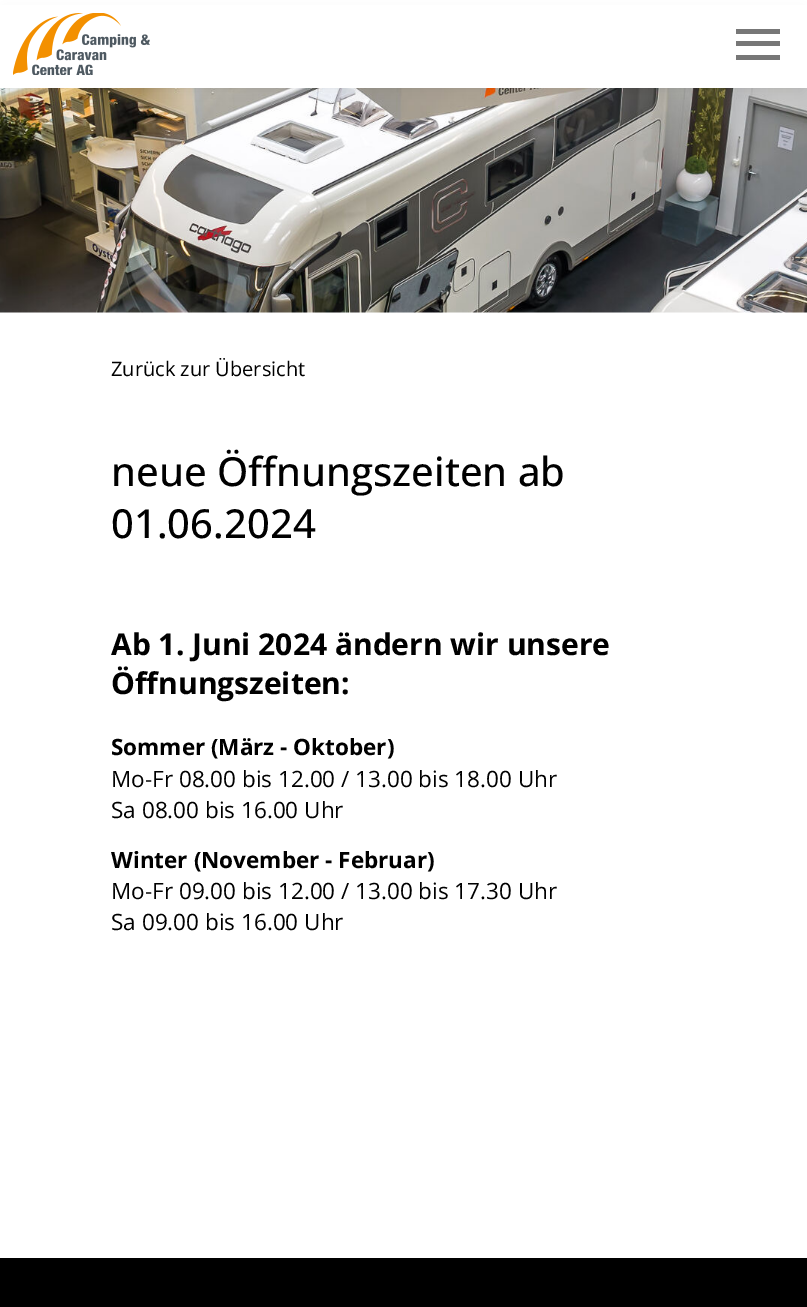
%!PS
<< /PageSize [807 1307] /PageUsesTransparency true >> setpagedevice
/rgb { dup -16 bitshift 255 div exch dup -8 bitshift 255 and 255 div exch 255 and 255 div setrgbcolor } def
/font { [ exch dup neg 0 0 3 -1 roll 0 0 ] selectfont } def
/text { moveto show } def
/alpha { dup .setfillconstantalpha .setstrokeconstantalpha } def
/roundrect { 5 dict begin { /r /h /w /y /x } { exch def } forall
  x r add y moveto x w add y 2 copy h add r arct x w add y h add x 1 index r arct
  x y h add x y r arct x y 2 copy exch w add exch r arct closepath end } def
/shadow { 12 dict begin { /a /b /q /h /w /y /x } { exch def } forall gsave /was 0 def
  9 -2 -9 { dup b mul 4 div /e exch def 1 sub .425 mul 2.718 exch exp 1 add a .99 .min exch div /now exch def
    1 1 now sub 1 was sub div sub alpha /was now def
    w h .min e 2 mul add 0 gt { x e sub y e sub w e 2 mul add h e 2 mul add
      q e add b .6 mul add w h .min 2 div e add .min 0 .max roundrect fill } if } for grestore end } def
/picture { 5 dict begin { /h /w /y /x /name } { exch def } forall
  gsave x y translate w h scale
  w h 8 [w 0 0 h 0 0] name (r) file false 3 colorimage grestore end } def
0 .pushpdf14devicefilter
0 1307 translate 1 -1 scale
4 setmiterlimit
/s1 { /OpenSans-Regular 20 font 16#000000 rgb } def
/s2 { /OpenSans-Medium 40 font 16#000000 rgb } def
/s3 { /OpenSans-Bold 30 font 16#000000 rgb } def
/s4 { /OpenSans-Bold 22.5 font 16#000000 rgb } def
/s5 { /OpenSans-Regular 22.5 font 16#000000 rgb } def
16#FFFFFF rgb
0 0 807 1307 rectfill
(pic2.raw) 0 88 807 225 picture
16#000000 rgb
6 13 795 75 0 6 0.1 shadow
16#FFFFFF rgb
0 5 807 83 rectfill
(pic1.raw) 13 13 137 62 picture
16#777777 rgb
736 29 44 5 rectfill
736 41 44 5 rectfill
736 55 44 5 rectfill
s1
(Zurück zur Übersicht) 111 376 text
s2
(neue Öffnungszeiten ab) 111 486 text
(01.06.2024) 111 538 text
s3
(Ab 1. Juni 2024 ändern wir unsere) 111 655 text
(Öffnungszeiten:) 111 694 text
s4
(Sommer \(März - Oktober\)) 111 755 text
s5
(Mo-Fr 08.00 bis 12.00 / 13.00 bis 18.00 Uhr) 111 787 text
(Sa 08.00 bis 16.00 Uhr) 111 818 text
s4
(Winter \(November - Februar\)) 111 868 text
s5
(Mo-Fr 09.00 bis 12.00 / 13.00 bis 17.30 Uhr) 111 899 text
(Sa 09.00 bis 16.00 Uhr) 111 930 text
0 1258 807 49 rectfill
.poppdf14devicefilter showpage
